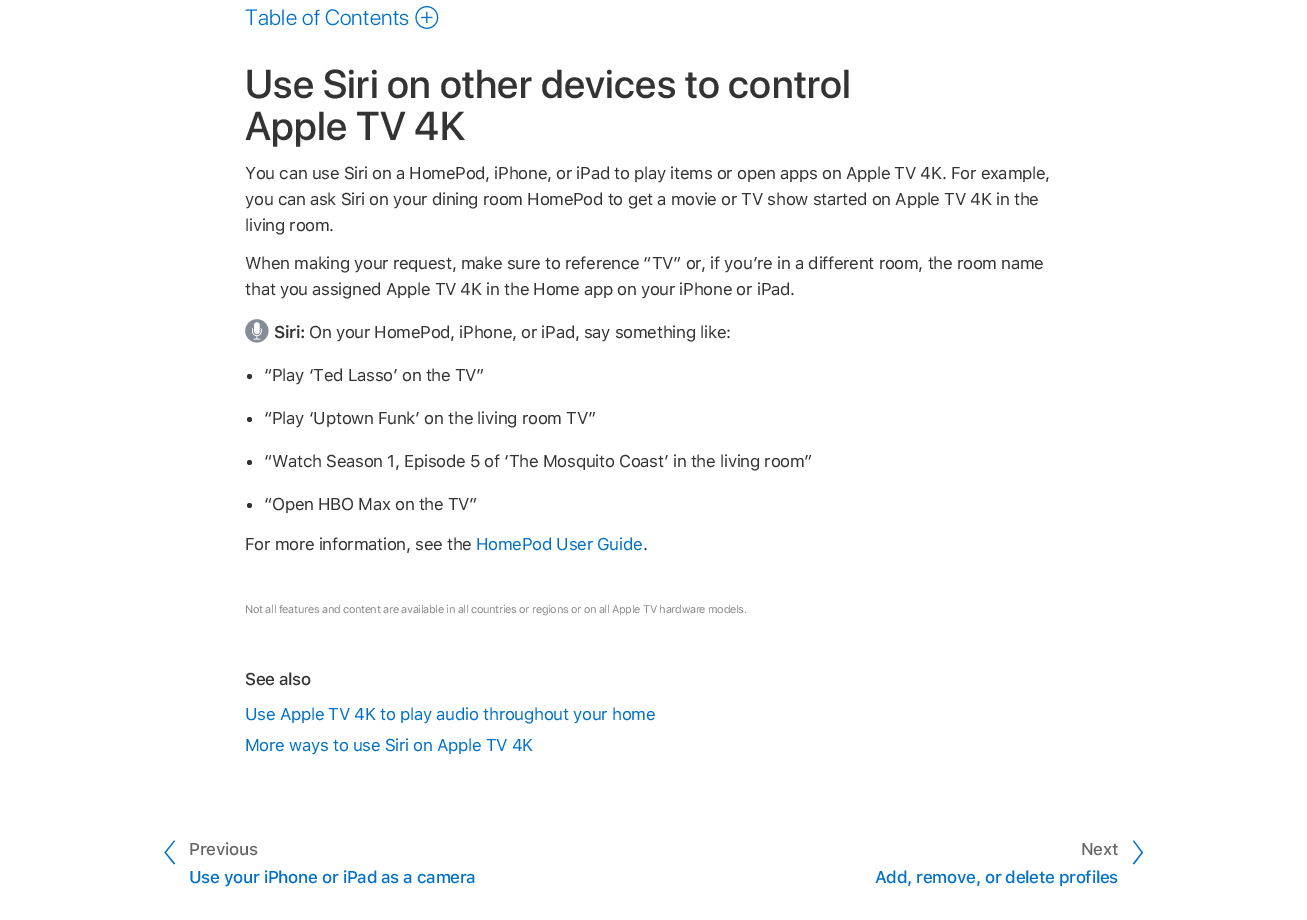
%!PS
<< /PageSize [1307 920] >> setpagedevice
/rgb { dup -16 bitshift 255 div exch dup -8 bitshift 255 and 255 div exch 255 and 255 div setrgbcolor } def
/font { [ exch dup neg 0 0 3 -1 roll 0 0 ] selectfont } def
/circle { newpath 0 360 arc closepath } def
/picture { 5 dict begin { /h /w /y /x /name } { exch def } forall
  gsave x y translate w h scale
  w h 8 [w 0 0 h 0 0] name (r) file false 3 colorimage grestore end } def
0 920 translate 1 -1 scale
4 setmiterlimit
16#FFFFFF rgb
0 0 1307 920 rectfill
/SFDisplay-Light 22 font
16#0070C9 rgb
245 25 moveto 0.3 0 (Table of Contents) ashow
(pic1.raw) 415 6 24 23 picture
/SFDisplay-Medium 40 font
16#333333 rgb
245 98 moveto 0.3 0 (Use Siri on other devices to control) ashow
245 140 moveto 0.3 0 (Apple TV 4K) ashow
/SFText-Regular 17 font
245 179 moveto -0.36 0 (You can use Siri on a HomePod, iPhone, or iPad to play items or open apps on Apple TV 4K. For example,) ashow
245 205 moveto -0.36 0 (you can ask Siri on your dining room HomePod to get a movie or TV show started on Apple TV 4K in the) ashow
245 231 moveto -0.36 0 (living room.) ashow
245 269 moveto -0.36 0 (When making your request, make sure to reference “TV” or, if you’re in a different room, the room name) ashow
245 295 moveto -0.36 0 (that you assigned Apple TV 4K in the Home app on your iPhone or iPad.) ashow
(pic2.raw) 245 319 24 24 picture
/SFText-SemiBold 17 font
274 338 moveto -0.36 0 (Siri:) ashow
/SFText-Regular 17 font
309 338 moveto -0.36 0 (On your HomePod, iPhone, or iPad, say something like:) ashow
249.5 376.5 2.5 circle fill
264 381 moveto -0.36 0 (“Play ‘Ted Lasso’ on the TV”) ashow
249.5 419.5 2.5 circle fill
264 424 moveto -0.36 0 (“Play ‘Uptown Funk’ on the living room TV”) ashow
249.5 462.5 2.5 circle fill
264 467 moveto -0.36 0 (“Watch Season 1, Episode 5 of ‘The Mosquito Coast’ in the living room”) ashow
249.5 505.5 2.5 circle fill
264 510 moveto -0.36 0 (“Open HBO Max on the TV”) ashow
245 550 moveto -0.36 0 (For more information, see the) ashow
16#0070C9 rgb
476 550 moveto -0.36 0 (HomePod User Guide) ashow
16#333333 rgb
643 550 moveto -0.36 0 (.) ashow
/SFText-Regular 11.05 font
16#888888 rgb
245 613 moveto -0.36 0 (Not all features and content are available in all countries or regions or on all Apple TV hardware models.) ashow
/SFText-Medium 17 font
16#333333 rgb
245 685 moveto -0.36 0 (See also) ashow
/SFText-Regular 17 font
16#0070C9 rgb
245 720 moveto -0.36 0 (Use Apple TV 4K to play audio throughout your home) ashow
245 751 moveto -0.36 0 (More ways to use Siri on Apple TV 4K) ashow
174 840.5 moveto 164.5 852.5 lineto 174 864.5 lineto 175 863.5 lineto 166 852.5 lineto 175 841 lineto closepath fill
/SFText-Medium 17 font
16#666666 rgb
189 855 moveto -0.36 0 (Previous) ashow
16#0070C9 rgb
189 883 moveto -0.36 0 (Use your iPhone or iPad as a camera) ashow
16#666666 rgb
1081 855 moveto -0.36 0 (Next) ashow
16#0070C9 rgb
1133 841 moveto 1141.5 852.5 lineto 1133 863.5 lineto 1134 864.5 lineto 1143 852.5 lineto 1134 840.5 lineto closepath fill
875 883 moveto -0.36 0 (Add, remove, or delete profiles) ashow
showpage
